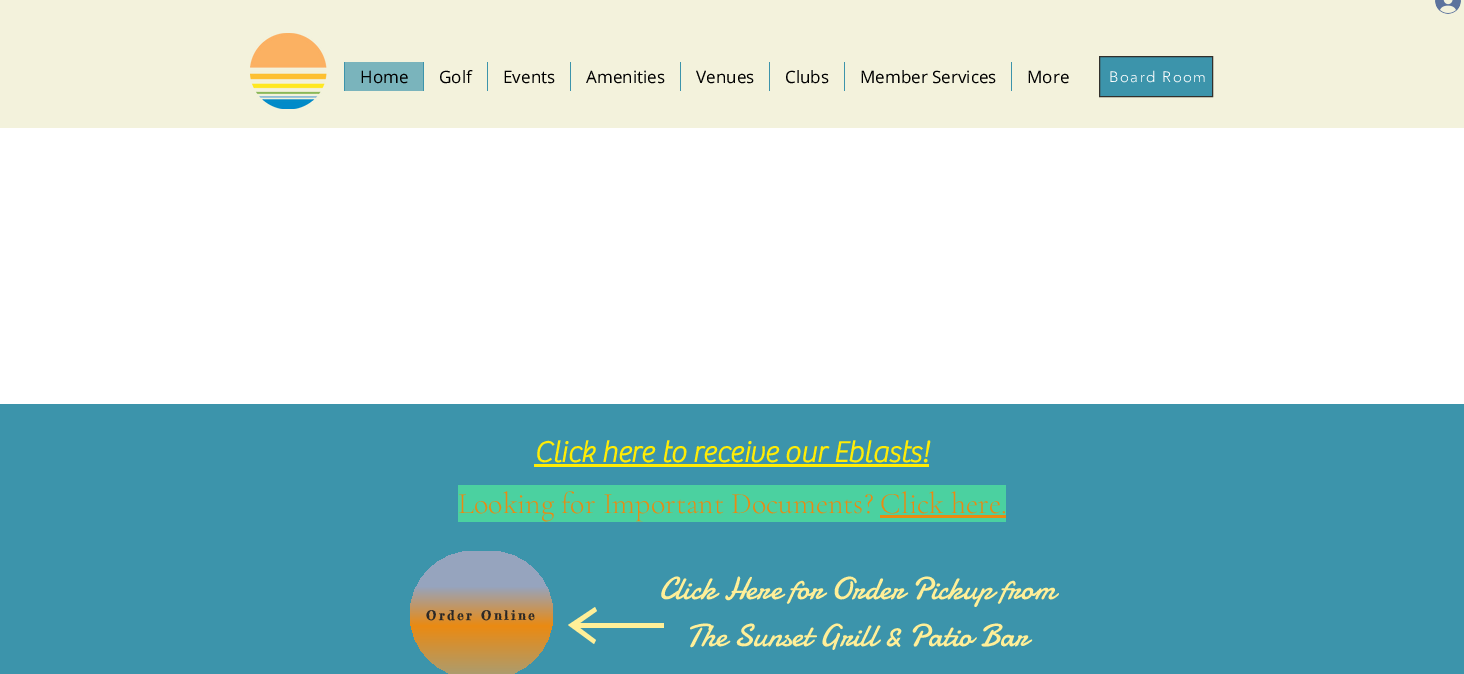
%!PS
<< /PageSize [1464 674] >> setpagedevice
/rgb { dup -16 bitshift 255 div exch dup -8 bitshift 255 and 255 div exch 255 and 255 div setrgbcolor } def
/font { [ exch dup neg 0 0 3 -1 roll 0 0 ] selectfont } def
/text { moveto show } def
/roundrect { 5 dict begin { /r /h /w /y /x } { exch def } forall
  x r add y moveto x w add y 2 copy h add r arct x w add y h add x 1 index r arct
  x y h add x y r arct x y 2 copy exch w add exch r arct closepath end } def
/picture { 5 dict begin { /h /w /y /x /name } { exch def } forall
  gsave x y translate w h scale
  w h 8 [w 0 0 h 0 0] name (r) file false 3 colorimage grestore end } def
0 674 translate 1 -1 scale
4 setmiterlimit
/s1 { /OpenSans-Regular 17 font 16#000000 rgb } def
/s2 { /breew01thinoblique-Bold 30 font 16#FFEC06 rgb } def
/s3 { /CormorantGaramond-Light 30 font 16#EA8A12 rgb } def
/s4 { /Damion-Regular 32 font 16#FFEF98 rgb } def
16#F3F2DC rgb
0 0 1464 674 rectfill
(pic1.raw) 1435 0 26 14 picture
(pic2.raw) 250 33 77 76 picture
16#7AB4BC rgb
345 62 78 29 rectfill
16#3C94AB rgb
344 62 1 29 rectfill
s1
(Home) 360 83 text
16#3C94AB rgb
423 62 1 29 rectfill
s1
(Golf) 439 83 text
16#3C94AB rgb
487 62 1 29 rectfill
s1
(Events) 503 83 text
16#3C94AB rgb
570 62 1 29 rectfill
s1
(Amenities) 586 83 text
16#3C94AB rgb
680 62 1 29 rectfill
s1
(Venues) 696 83 text
16#3C94AB rgb
769 62 1 29 rectfill
s1
(Clubs) 785 83 text
16#3C94AB rgb
844 62 1 29 rectfill
s1
(Member Services) 860 83 text
16#3C94AB rgb
1011 62 1 29 rectfill
s1
(More) 1027 83 text
16#3C94AB rgb
1099.5 56.5 moveto 1212.5 56.5 lineto 1212.5 96.5 lineto 1099.5 96.5 lineto closepath gsave fill grestore
16#31302C rgb
stroke
/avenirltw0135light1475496-Light 15 font
16#FFFFFF rgb
1109 82 moveto 1.5 0 (Board Room) ashow
0 128 1464 276 rectfill
16#3C94AB rgb
0 404 1464 270 rectfill
s2
(Click here to receive our Eblasts!) 534 462 text
534 464 395 3 rectfill
16#4BD1A0 rgb
458 485 548 37 rectfill
s3
(Looking for Important Documents? Click here.) 458 513 text
880 515 126 3 rectfill
gsave 410 551 143 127 63.5 roundrect clip newpath
<< /ShadingType 2 /ColorSpace /DeviceRGB /Coords [482 551 482 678] /Extend [true true] /Function << /FunctionType 3 /Domain [0 1] /Functions [<< /FunctionType 2 /Domain [0 1] /C0 [0.588 0.643 0.745] /C1 [0.588 0.643 0.745] /N 1 >> << /FunctionType 2 /Domain [0 1] /C0 [0.588 0.643 0.745] /C1 [0.918 0.541 0.071] /N 1 >> << /FunctionType 2 /Domain [0 1] /C0 [0.918 0.541 0.071] /C1 [0.659 0.616 0.459] /N 1 >>] /Bounds [0.28 0.59] /Encode [0 1 0 1 0 1] >> >> shfill grestore
/FrederickatheGreat-Bold 13 font
16#282626 rgb
426 620 moveto 2.6 0 (Order Online) ashow
16#FFEF98 rgb
662 623 moveto 580 623 lineto 597 611 lineto 595 607 lineto 568 625 lineto 594 644 lineto 596 640 lineto 580 628 lineto 664 628 lineto 664 623 lineto closepath fill
s4
(Click Here for Order Pickup from) 659 599 text
(The Sunset Grill & Patio Bar) 686 646 text
showpage
